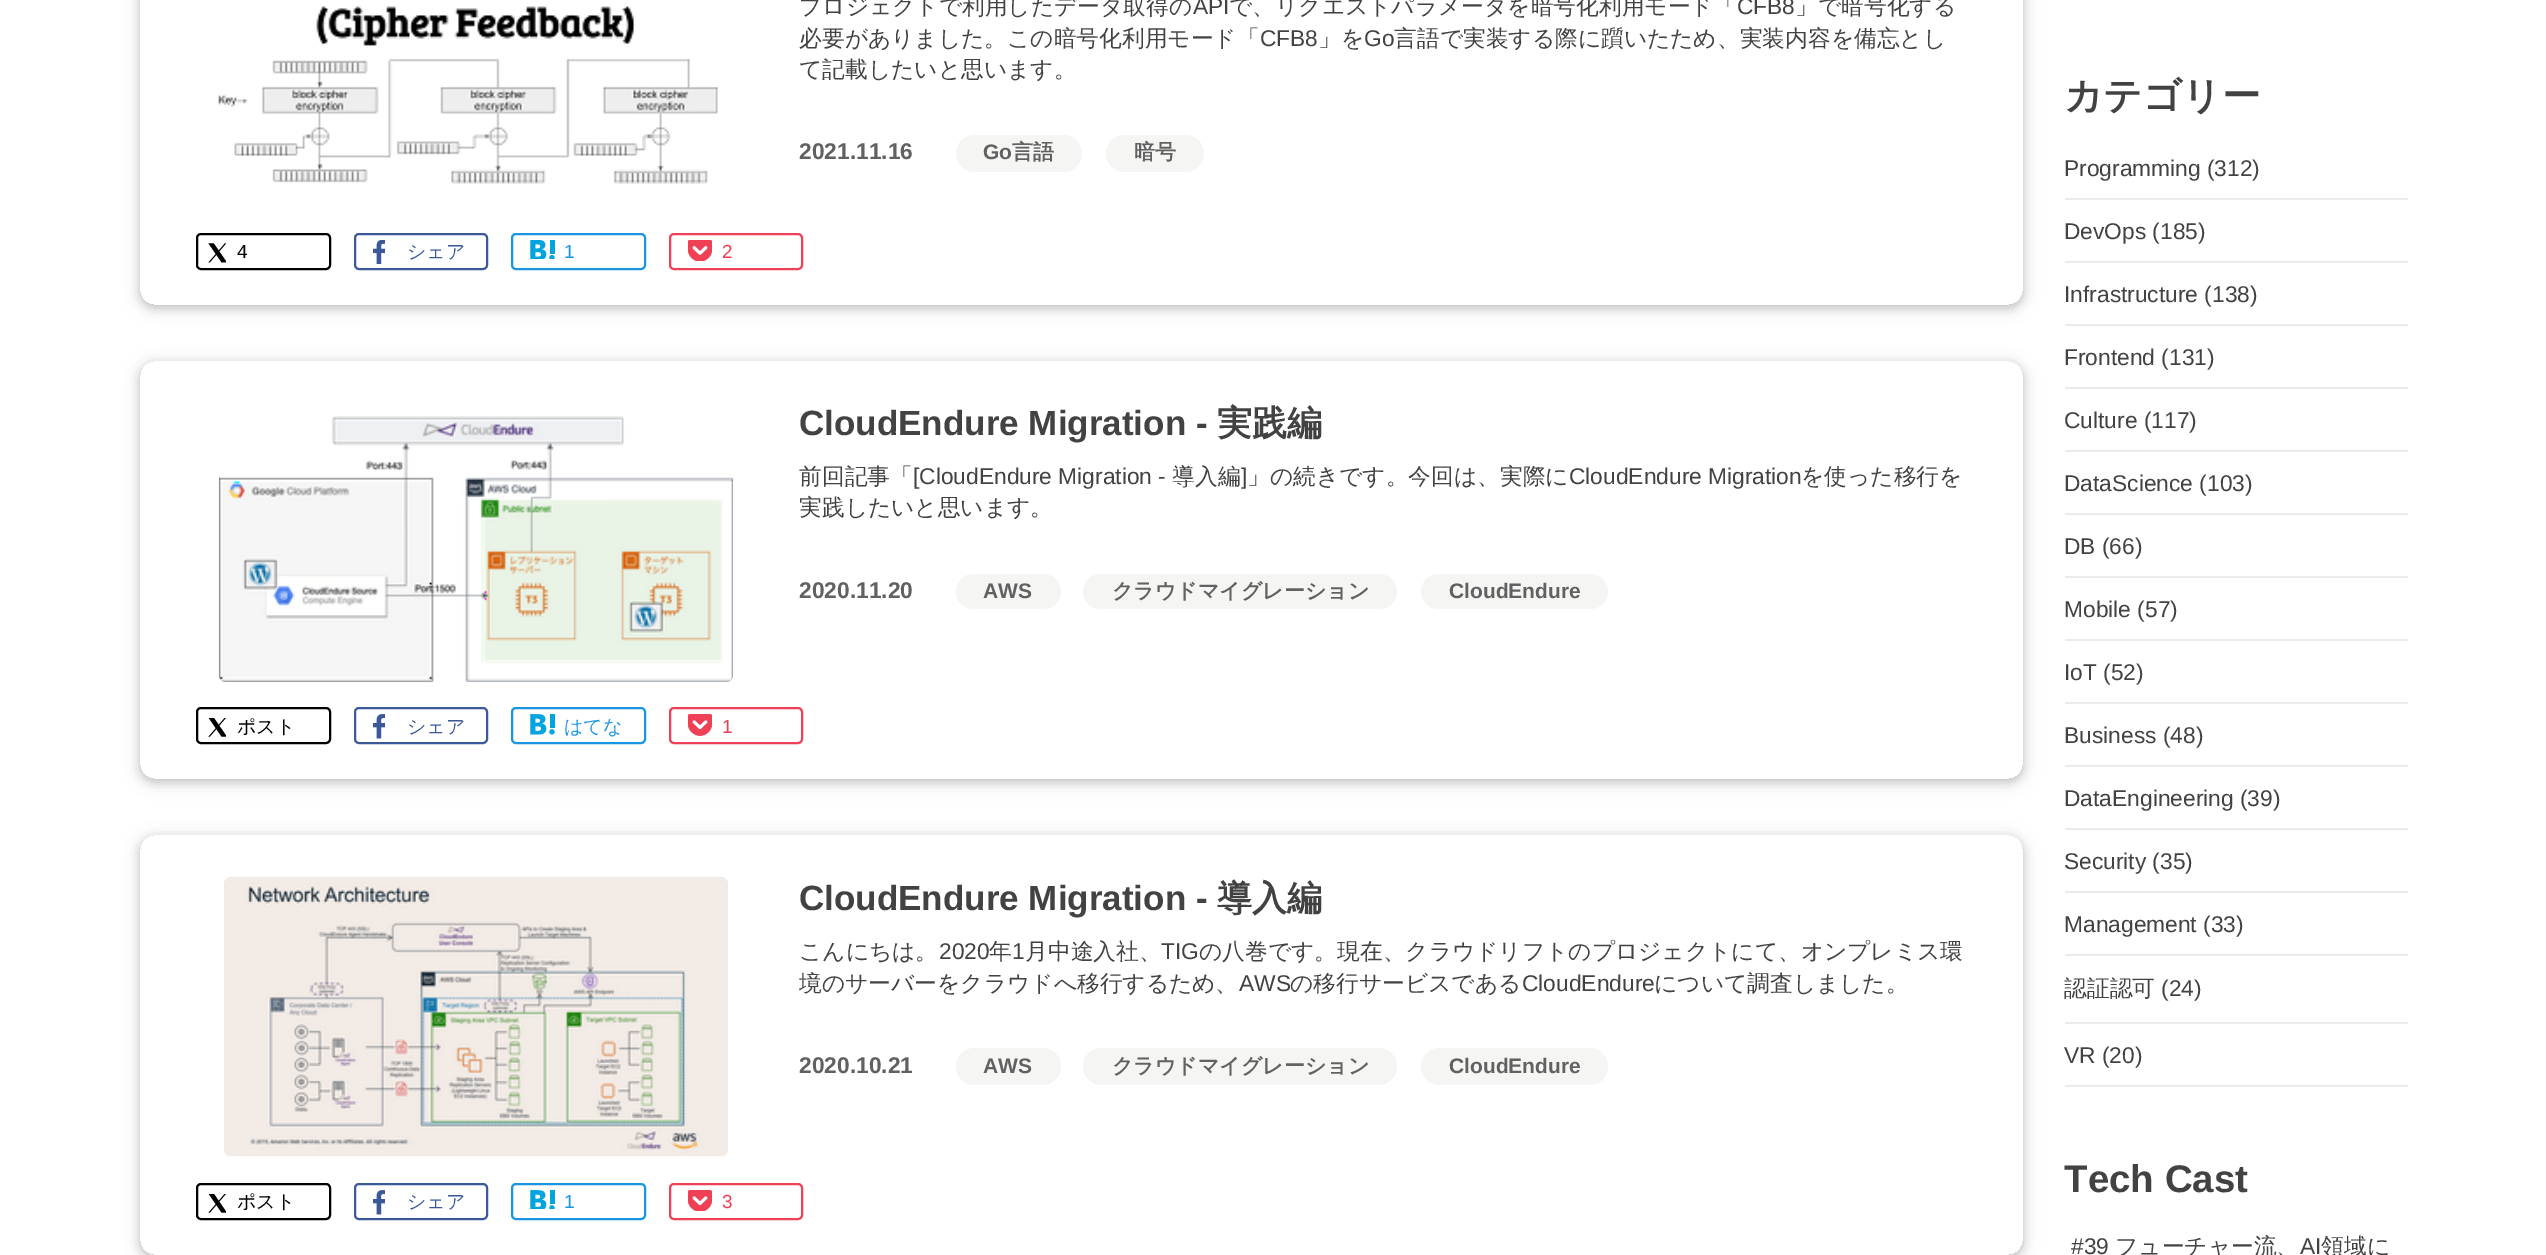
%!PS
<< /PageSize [2546 1255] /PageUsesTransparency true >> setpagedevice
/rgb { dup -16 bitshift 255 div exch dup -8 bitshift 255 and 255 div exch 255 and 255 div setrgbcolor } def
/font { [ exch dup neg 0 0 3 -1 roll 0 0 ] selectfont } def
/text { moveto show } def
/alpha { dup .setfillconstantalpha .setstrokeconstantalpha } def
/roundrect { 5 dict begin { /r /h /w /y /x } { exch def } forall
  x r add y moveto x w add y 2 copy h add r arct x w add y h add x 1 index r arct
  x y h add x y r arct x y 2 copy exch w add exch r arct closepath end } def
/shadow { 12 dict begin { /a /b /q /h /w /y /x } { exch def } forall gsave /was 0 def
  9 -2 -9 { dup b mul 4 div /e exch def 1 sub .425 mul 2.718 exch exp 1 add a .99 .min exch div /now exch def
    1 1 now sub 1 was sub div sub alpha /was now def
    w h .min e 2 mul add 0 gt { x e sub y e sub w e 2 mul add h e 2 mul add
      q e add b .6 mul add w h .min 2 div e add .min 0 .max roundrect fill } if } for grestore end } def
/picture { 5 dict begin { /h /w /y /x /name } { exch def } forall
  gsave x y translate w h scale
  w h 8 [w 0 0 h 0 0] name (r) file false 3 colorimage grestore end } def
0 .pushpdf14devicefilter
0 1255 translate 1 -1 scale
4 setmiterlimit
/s1 { /WenQuanYiZenHei-Medium 22.75 font 16#424242 rgb } def
/s2 { /LiberationSans-Regular 22.75 font 16#424242 rgb } def
/s3 { /LiberationSans-Bold 22.75 font 16#616161 rgb } def
/s4 { /LiberationSans-Bold 21 font 16#616161 rgb } def
/s5 { /WenQuanYiZenHei-Bold 21 font 16#616161 rgb } def
/s6 { /LiberationSans-Regular 19 font 16#000000 rgb } def
/s7 { /WenQuanYiZenHei-Medium 19 font 16#3B5998 rgb } def
/s8 { /LiberationSans-Regular 19 font 16#1B95E0 rgb } def
/s9 { /LiberationSans-Regular 19 font 16#EE4056 rgb } def
/s10 { /LiberationSans-Bold 35 font 16#424242 rgb } def
/s11 { /WenQuanYiZenHei-Bold 35 font 16#424242 rgb } def
/s12 { /WenQuanYiZenHei-Medium 19 font 16#000000 rgb } def
/s13 { /WenQuanYiZenHei-Medium 19 font 16#1B95E0 rgb } def
/s14 { /WenQuanYiZenHei-Bold 38.5 font 16#424242 rgb } def
/s15 { /LiberationSans-Bold 38.5 font 16#424242 rgb } def
16#FFFFFF rgb
0 0 2546 1255 rectfill
gsave
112 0 moveto 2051 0 lineto 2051 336 lineto 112 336 lineto closepath 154 -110 moveto 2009 -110 lineto 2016.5 -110 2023 -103.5 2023 -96 curveto 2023 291 lineto 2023 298.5 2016.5 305 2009 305 curveto 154 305 lineto 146.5 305 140 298.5 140 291 curveto 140 -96 lineto 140 -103.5 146.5 -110 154 -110 curveto closepath eoclip newpath
16#000000 rgb
140 -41 1883 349 14 9 0.12 shadow
grestore
gsave
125 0 moveto 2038 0 lineto 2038 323 lineto 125 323 lineto closepath 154 -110 moveto 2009 -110 lineto 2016.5 -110 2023 -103.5 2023 -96 curveto 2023 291 lineto 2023 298.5 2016.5 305 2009 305 curveto 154 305 lineto 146.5 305 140 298.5 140 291 curveto 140 -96 lineto 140 -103.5 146.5 -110 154 -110 curveto closepath eoclip newpath
16#000000 rgb
140 -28 1883 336 14 4.5 0.16 shadow
grestore
(pic1.raw) 218 6 500 178 picture
s1
(プロジェクトで利用したデータ取得の) 799 14 text
s2
(API) 1193 14 text
s1
(で、リクエストパラメータを暗号化利用モード「) 1229 14 text
s2
(CFB8) 1737 14 text
s1
(」で暗号化する) 1795 14 text
(必要がありました。この暗号化利用モード「) 799 46 text
s2
(CFB8) 1260 46 text
s1
(」を) 1318 46 text
s2
(Go) 1364 46 text
s1
(言語で実装する際に躓いたため、実装内容を備忘とし) 1394 46 text
(て記載したいと思います。) 799 77 text
s3
(2021.11.16) 799 159 text
16#F5F5F3 rgb
956 135 126 37 18.5 roundrect fill
s4
(Go) 983 159 text
s5
(言語) 1012 159 text
16#F5F5F3 rgb
1106 135 98 37 18.5 roundrect fill
s5
(暗号) 1134 159 text
16#000000 rgb
2 setlinewidth
197 234 133 35 4 roundrect stroke
(pic2.raw) 208 243 18 20 picture
s6
(4) 237 258 text
16#3B5998 rgb
355 234 132 35 4 roundrect stroke
(pic3.raw) 373 240 12 24 picture
s7
(シェア) 407 258 text
16#1B95E0 rgb
512 234 133 35 4 roundrect stroke
(pic4.raw) 530 240 25 19 picture
s8
(1) 564 258 text
16#EE4056 rgb
670 234 132 35 4 roundrect stroke
(pic5.raw) 688 240 24 21 picture
(2) 722 258 text
gsave
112 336 moveto 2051 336 lineto 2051 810 lineto 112 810 lineto closepath 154 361 moveto 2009 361 lineto 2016.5 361 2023 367.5 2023 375 curveto 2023 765 lineto 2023 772.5 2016.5 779 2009 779 curveto 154 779 lineto 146.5 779 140 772.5 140 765 curveto 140 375 lineto 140 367.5 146.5 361 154 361 curveto closepath eoclip newpath
16#000000 rgb
140 364 1883 418 14 9 0.12 shadow
grestore
gsave
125 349 moveto 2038 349 lineto 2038 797 lineto 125 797 lineto closepath 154 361 moveto 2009 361 lineto 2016.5 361 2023 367.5 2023 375 curveto 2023 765 lineto 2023 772.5 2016.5 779 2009 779 curveto 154 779 lineto 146.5 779 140 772.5 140 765 curveto 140 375 lineto 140 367.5 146.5 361 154 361 curveto closepath eoclip newpath
16#000000 rgb
140 364 1883 418 14 4.5 0.16 shadow
grestore
(pic6.raw) 218 416 516 267 picture
s10
(CloudEndure Migration -) 799 435 text
s11
(実践編) 1217 435 text
s1
(前回記事「) 799 484 text
s2
([CloudEndure Migration -) 913 484 text
s1
(導入編) 1172 484 text
s2
(]) 1241 484 text
s1
(」の続きです。今回は、実際に) 1247 484 text
s2
(CloudEndure Migration) 1569 484 text
s1
(を使った移行を) 1801 484 text
(実践したいと思います。) 799 515 text
s3
(2020.11.20) 799 598 text
16#F5F5F3 rgb
956 574 105 35 17.5 roundrect fill
s4
(AWS) 983 598 text
16#F5F5F3 rgb
1083 574 314 35 17.5 roundrect fill
s5
(クラウドマイグレーション) 1112 598 text
16#F5F5F3 rgb
1421 574 187 35 17.5 roundrect fill
s4
(CloudEndure) 1449 598 text
16#000000 rgb
197 708 133 35 4 roundrect stroke
(pic7.raw) 208 718 18 19 picture
s12
(ポスト) 237 733 text
16#3B5998 rgb
355 708 132 35 4 roundrect stroke
(pic8.raw) 373 714 12 25 picture
(シェア) 407 733 text
16#1B95E0 rgb
512 708 133 35 4 roundrect stroke
(pic9.raw) 530 714 25 21 picture
(はてな) 564 733 text
16#EE4056 rgb
670 708 132 35 4 roundrect stroke
(pic10.raw) 688 714 24 22 picture
s9
(1) 722 733 text
gsave
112 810 moveto 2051 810 lineto 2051 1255 lineto 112 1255 lineto closepath 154 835 moveto 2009 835 lineto 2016.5 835 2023 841.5 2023 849 curveto 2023 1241 lineto 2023 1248.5 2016.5 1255 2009 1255 curveto 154 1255 lineto 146.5 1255 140 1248.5 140 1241 curveto 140 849 lineto 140 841.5 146.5 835 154 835 curveto closepath eoclip newpath
16#000000 rgb
140 838 1883 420 14 9 0.12 shadow
grestore
gsave
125 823 moveto 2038 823 lineto 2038 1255 lineto 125 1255 lineto closepath 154 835 moveto 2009 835 lineto 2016.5 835 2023 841.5 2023 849 curveto 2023 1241 lineto 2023 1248.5 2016.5 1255 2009 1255 curveto 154 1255 lineto 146.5 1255 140 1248.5 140 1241 curveto 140 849 lineto 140 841.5 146.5 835 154 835 curveto closepath eoclip newpath
16#000000 rgb
140 838 1883 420 14 4.5 0.16 shadow
grestore
(pic11.raw) 224 876 504 281 picture
s10
(CloudEndure Migration -) 799 910 text
s11
(導入編) 1217 910 text
s1
(こんにちは。) 799 959 text
s2
(2020) 939 959 text
s1
(年) 989 959 text
s2
(1) 1012 959 text
s1
(月中途入社、) 1025 959 text
s2
(TIG) 1161 959 text
s1
(の八巻です。現在、クラウドリフトのプロジェクトにて、オンプレミス環) 1199 959 text
(境のサーバーをクラウドへ移行するため、) 799 991 text
s2
(AWS) 1239 991 text
s1
(の移行サービスである) 1290 991 text
s2
(CloudEndure) 1522 991 text
s1
(について調査しました。) 1654 991 text
s3
(2020.10.21) 799 1073 text
16#F5F5F3 rgb
956 1048 105 37 18.5 roundrect fill
s4
(AWS) 983 1073 text
16#F5F5F3 rgb
1083 1048 314 37 18.5 roundrect fill
s5
(クラウドマイグレーション) 1112 1073 text
16#F5F5F3 rgb
1421 1048 187 37 18.5 roundrect fill
s4
(CloudEndure) 1449 1073 text
16#000000 rgb
197 1184 133 35 4 roundrect stroke
(pic7.raw) 208 1194 18 19 picture
s12
(ポスト) 237 1208 text
16#3B5998 rgb
355 1184 132 35 4 roundrect stroke
(pic8.raw) 373 1190 12 25 picture
(シェア) 407 1208 text
16#1B95E0 rgb
512 1184 133 35 4 roundrect stroke
(pic12.raw) 530 1190 25 19 picture
s8
(1) 564 1208 text
16#EE4056 rgb
670 1184 132 35 4 roundrect stroke
(pic13.raw) 688 1190 24 21 picture
(3) 722 1208 text
s14
(カテゴリー) 2064 109 text
16#ECEBEB rgb
2065 198 343 2 rectfill
s2
(Programming \(312\)) 2064 176 text
16#ECEBEB rgb
2065 261 343 2 rectfill
s2
(DevOps \(185\)) 2064 239 text
16#ECEBEB rgb
2065 324 343 2 rectfill
s2
(Infrastructure \(138\)) 2064 302 text
16#ECEBEB rgb
2065 387 343 2 rectfill
s2
(Frontend \(131\)) 2064 365 text
16#ECEBEB rgb
2065 450 343 2 rectfill
s2
(Culture \(117\)) 2064 428 text
16#ECEBEB rgb
2065 513 343 2 rectfill
s2
(DataScience \(103\)) 2064 491 text
16#ECEBEB rgb
2065 576 343 2 rectfill
s2
(DB \(66\)) 2064 554 text
16#ECEBEB rgb
2065 639 343 2 rectfill
s2
(Mobile \(57\)) 2064 617 text
16#ECEBEB rgb
2065 702 343 2 rectfill
s2
(IoT \(52\)) 2064 680 text
16#ECEBEB rgb
2065 765 343 2 rectfill
s2
(Business \(48\)) 2064 743 text
16#ECEBEB rgb
2065 828 343 2 rectfill
s2
(DataEngineering \(39\)) 2064 806 text
16#ECEBEB rgb
2065 891 343 2 rectfill
s2
(Security \(35\)) 2064 869 text
16#ECEBEB rgb
2065 954 343 2 rectfill
s2
(Management \(33\)) 2064 932 text
16#ECEBEB rgb
2065 1022 343 2 rectfill
s1
(認証認可) 2064 996 text
s2
(\(24\)) 2161 996 text
16#ECEBEB rgb
2065 1085 343 2 rectfill
s2
(VR \(20\)) 2064 1063 text
s15
(Tech Cast) 2064 1192 text
s2
(#39) 2071 1254 text
s1
(フューチャー流、) 2115 1254 text
s2
(AI) 2300 1254 text
s1
(領域に) 2321 1254 text
.poppdf14devicefilter showpage
